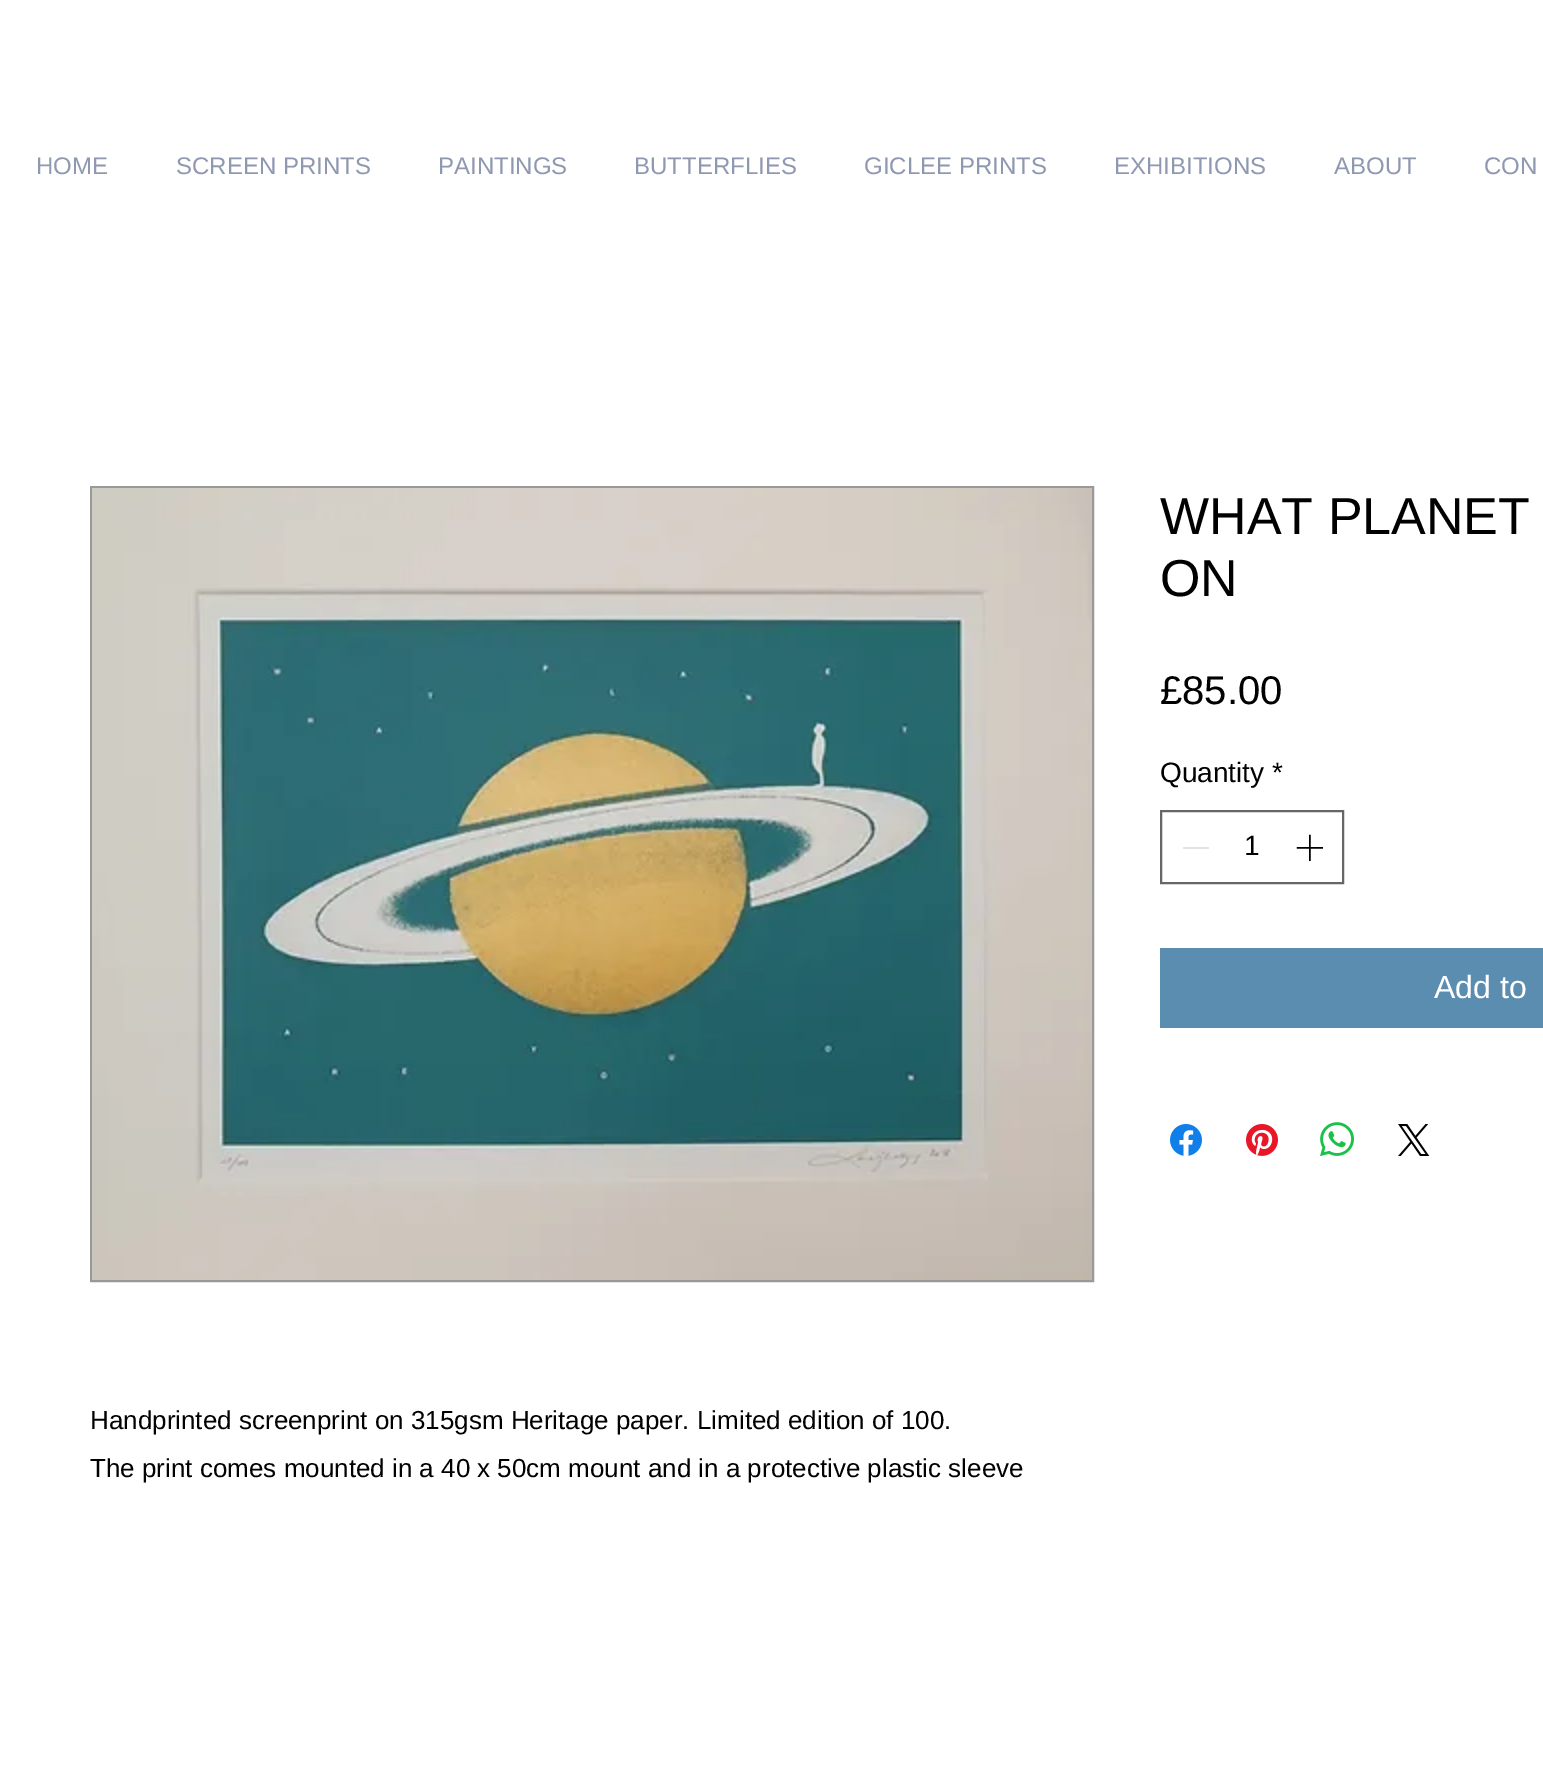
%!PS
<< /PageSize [1543 1780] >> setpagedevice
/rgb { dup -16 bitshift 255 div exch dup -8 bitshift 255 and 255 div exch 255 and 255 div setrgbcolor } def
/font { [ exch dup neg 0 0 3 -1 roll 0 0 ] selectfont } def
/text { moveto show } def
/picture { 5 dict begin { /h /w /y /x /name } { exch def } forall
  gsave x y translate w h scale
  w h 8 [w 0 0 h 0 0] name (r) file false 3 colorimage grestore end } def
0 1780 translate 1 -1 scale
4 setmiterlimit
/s1 { /LiberationSans-Regular 24 font 16#8F98B1 rgb } def
/s2 { /LiberationSans-Regular 52 font 16#000000 rgb } def
/s3 { /LiberationSans-Regular 40 font 16#000000 rgb } def
/s4 { /LiberationSans-Regular 28 font 16#000000 rgb } def
/s5 { /LiberationSans-Regular 32 font 16#FFFFFF rgb } def
/s6 { /LiberationSans-Regular 26 font 16#000000 rgb } def
16#FFFFFF rgb
0 0 1543 1780 rectfill
s1
(HOME) 36 174 text
(SCREEN PRINTS) 176 174 text
(PAINTINGS) 438 174 text
(BUTTERFLIES) 634 174 text
(GICLEE PRINTS) 864 174 text
(EXHIBITIONS) 1114 174 text
(ABOUT) 1334 174 text
(CON) 1484 174 text
s2
(WHAT PLANET) 1160 534 text
(ON) 1160 596 text
s3
(£85.00) 1160 704 text
s4
(Quantity *) 1160 782 text
16#666666 rgb
2 setlinewidth
1161 811 182 72 rectstroke
16#E3E3E3 rgb
1183 847 26 2 rectfill
s4
(1) 1244 855 text
(pic1.raw) 1296 834 27 27 picture
16#5B8DB0 rgb
1160 948 383 80 rectfill
s5
(Add to) 1434 998 text
(pic2.raw) 1170 1124 32 32 picture
(pic3.raw) 1246 1124 32 32 picture
(pic4.raw) 1320 1122 34 35 picture
(pic5.raw) 1398 1124 32 32 picture
16#999999 rgb
91 487 1002 794 rectstroke
(pic6.raw) 92 488 1000 792 picture
s6
(Handprinted screenprint on 315gsm Heritage paper. Limited edition of 100.) 90 1429 text
(The print comes mounted in a 40 x 50cm mount and in a protective plastic sleeve) 90 1477 text
showpage
